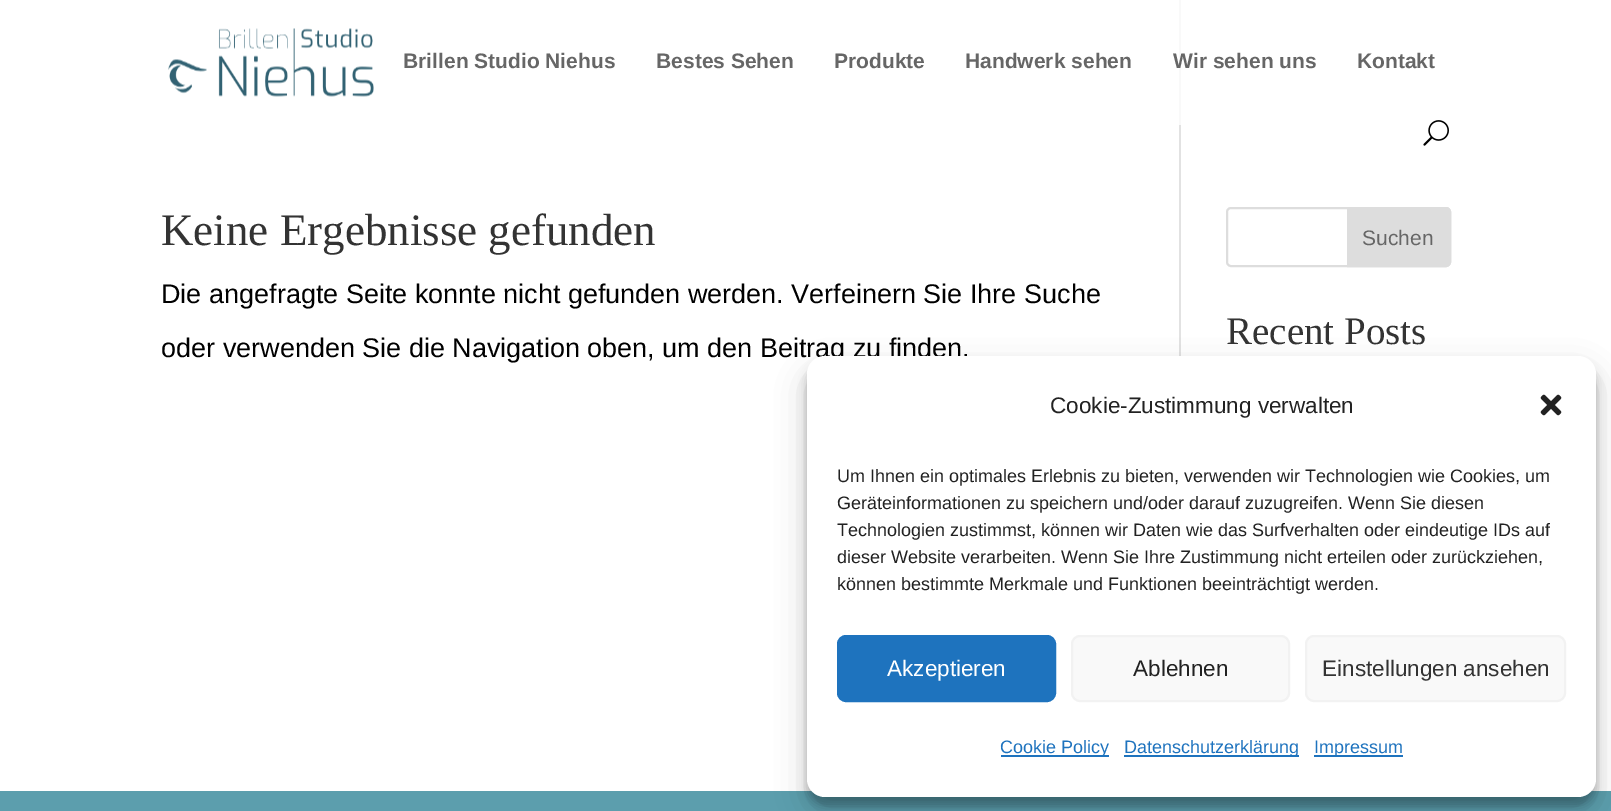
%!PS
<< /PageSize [1611 811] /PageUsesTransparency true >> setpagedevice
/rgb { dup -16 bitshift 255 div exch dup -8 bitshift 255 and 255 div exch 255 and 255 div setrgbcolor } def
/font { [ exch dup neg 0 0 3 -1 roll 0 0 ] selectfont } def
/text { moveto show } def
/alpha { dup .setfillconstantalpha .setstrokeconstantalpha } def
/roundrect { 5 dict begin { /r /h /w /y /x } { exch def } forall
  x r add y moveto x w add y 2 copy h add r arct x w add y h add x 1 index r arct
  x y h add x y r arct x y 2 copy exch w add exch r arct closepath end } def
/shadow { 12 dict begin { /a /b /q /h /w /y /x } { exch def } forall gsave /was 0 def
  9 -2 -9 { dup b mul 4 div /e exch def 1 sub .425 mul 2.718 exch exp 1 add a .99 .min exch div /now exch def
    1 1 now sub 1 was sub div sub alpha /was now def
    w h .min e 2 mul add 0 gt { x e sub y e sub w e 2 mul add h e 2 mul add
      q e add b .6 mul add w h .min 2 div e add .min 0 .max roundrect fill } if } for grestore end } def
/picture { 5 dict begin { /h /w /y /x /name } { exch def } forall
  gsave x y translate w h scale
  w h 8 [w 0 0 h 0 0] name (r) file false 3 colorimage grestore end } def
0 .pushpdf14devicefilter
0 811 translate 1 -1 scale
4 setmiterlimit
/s1 { /LiberationSans-Bold 21 font 16#666666 rgb } def
/s2 { /LiberationSerif-Regular 45 font 16#333333 rgb } def
/s3 { /LiberationSans-Regular 27 font 16#000000 rgb } def
/s4 { /LiberationSans-Regular 21 font 16#666666 rgb } def
/s5 { /LiberationSerif-Regular 39 font 16#333333 rgb } def
/s6 { /LiberationSans-Regular 22.5 font 16#222222 rgb } def
/s7 { /LiberationSans-Regular 18 font 16#222222 rgb } def
/s8 { /LiberationSans-Regular 22.5 font 16#FFFFFF rgb } def
/s9 { /LiberationSans-Regular 22.5 font 16#333333 rgb } def
/s10 { /LiberationSans-Regular 18 font 16#1E73BE rgb } def
16#FFFFFF rgb
0 0 1611 811 rectfill
(pic1.raw) 168 28 206 69 picture
s1
(Brillen Studio Niehus) 403 68 text
(Bestes Sehen) 656 68 text
(Produkte) 834 68 text
(Handwerk sehen) 965 68 text
16#F9F9F9 rgb
1179 0 2 125 rectfill
s1
(Wir sehen uns) 1173 68 text
(Kontakt) 1357 68 text
(pic2.raw) 1423 120 26 26 picture
16#E2E2E2 rgb
1179 125 2 231 rectfill
s2
(Keine Ergebnisse gefunden) 161 245 text
s3
(Die angefragte Seite konnte nicht gefunden werden. Verfeinern Sie Ihre Suche) 161 303 text
(oder verwenden Sie die Navigation oben, um den Beitrag zu finden.) 161 357 text
16#DDDDDD rgb
2 setlinewidth
1227 208 223 58 4 roundrect stroke
1348 208 moveto 1446 208 lineto 1448 208 1450 210 1450 212 curveto 1450 262 lineto 1450 264 1448 266 1446 266 curveto 1348 266 lineto closepath gsave fill grestore
stroke
s4
(Suchen) 1362 245 text
s5
(Recent Posts) 1226 344 text
16#5C9EAD rgb
0 791 1611 20 rectfill
16#000000 rgb
807 365 789 441 18 4.5 0.23 shadow
807 371 789 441 18 15 0.19 shadow
16#FFFFFF rgb
807 356 789 441 18 roundrect fill
s6
(Cookie-Zustimmung verwalten) 1050 413 text
(pic3.raw) 1540 394 22 22 picture
s7
(Um Ihnen ein optimales Erlebnis zu bieten, verwenden wir Technologien wie Cookies, um) 837 482 text
(Geräteinformationen zu speichern und/oder darauf zuzugreifen. Wenn Sie diesen) 837 509 text
(Technologien zustimmst, können wir Daten wie das Surfverhalten oder eindeutige IDs auf) 837 536 text
(dieser Website verarbeiten. Wenn Sie Ihre Zustimmung nicht erteilen oder zurückziehen,) 837 563 text
(können bestimmte Merkmale und Funktionen beeinträchtigt werden.) 837 590 text
16#1E73BE rgb
838 636 217 65 8 roundrect gsave fill grestore
stroke
s8
(Akzeptieren) 887 676 text
16#F9F9F9 rgb
1072 636 217 65 8 roundrect gsave fill grestore
16#F2F2F2 rgb
stroke
s6
(Ablehnen) 1133 676 text
16#F9F9F9 rgb
1306 636 259 65 8 roundrect gsave fill grestore
16#F2F2F2 rgb
stroke
s9
(Einstellungen ansehen) 1322 676 text
16#1E73BE rgb
1001 755 108 2 rectfill
s10
(Cookie Policy) 1000 753 text
1124 755 175 2 rectfill
(Datenschutzerklärung) 1124 753 text
1314 755 89 2 rectfill
(Impressum) 1314 753 text
.poppdf14devicefilter showpage
